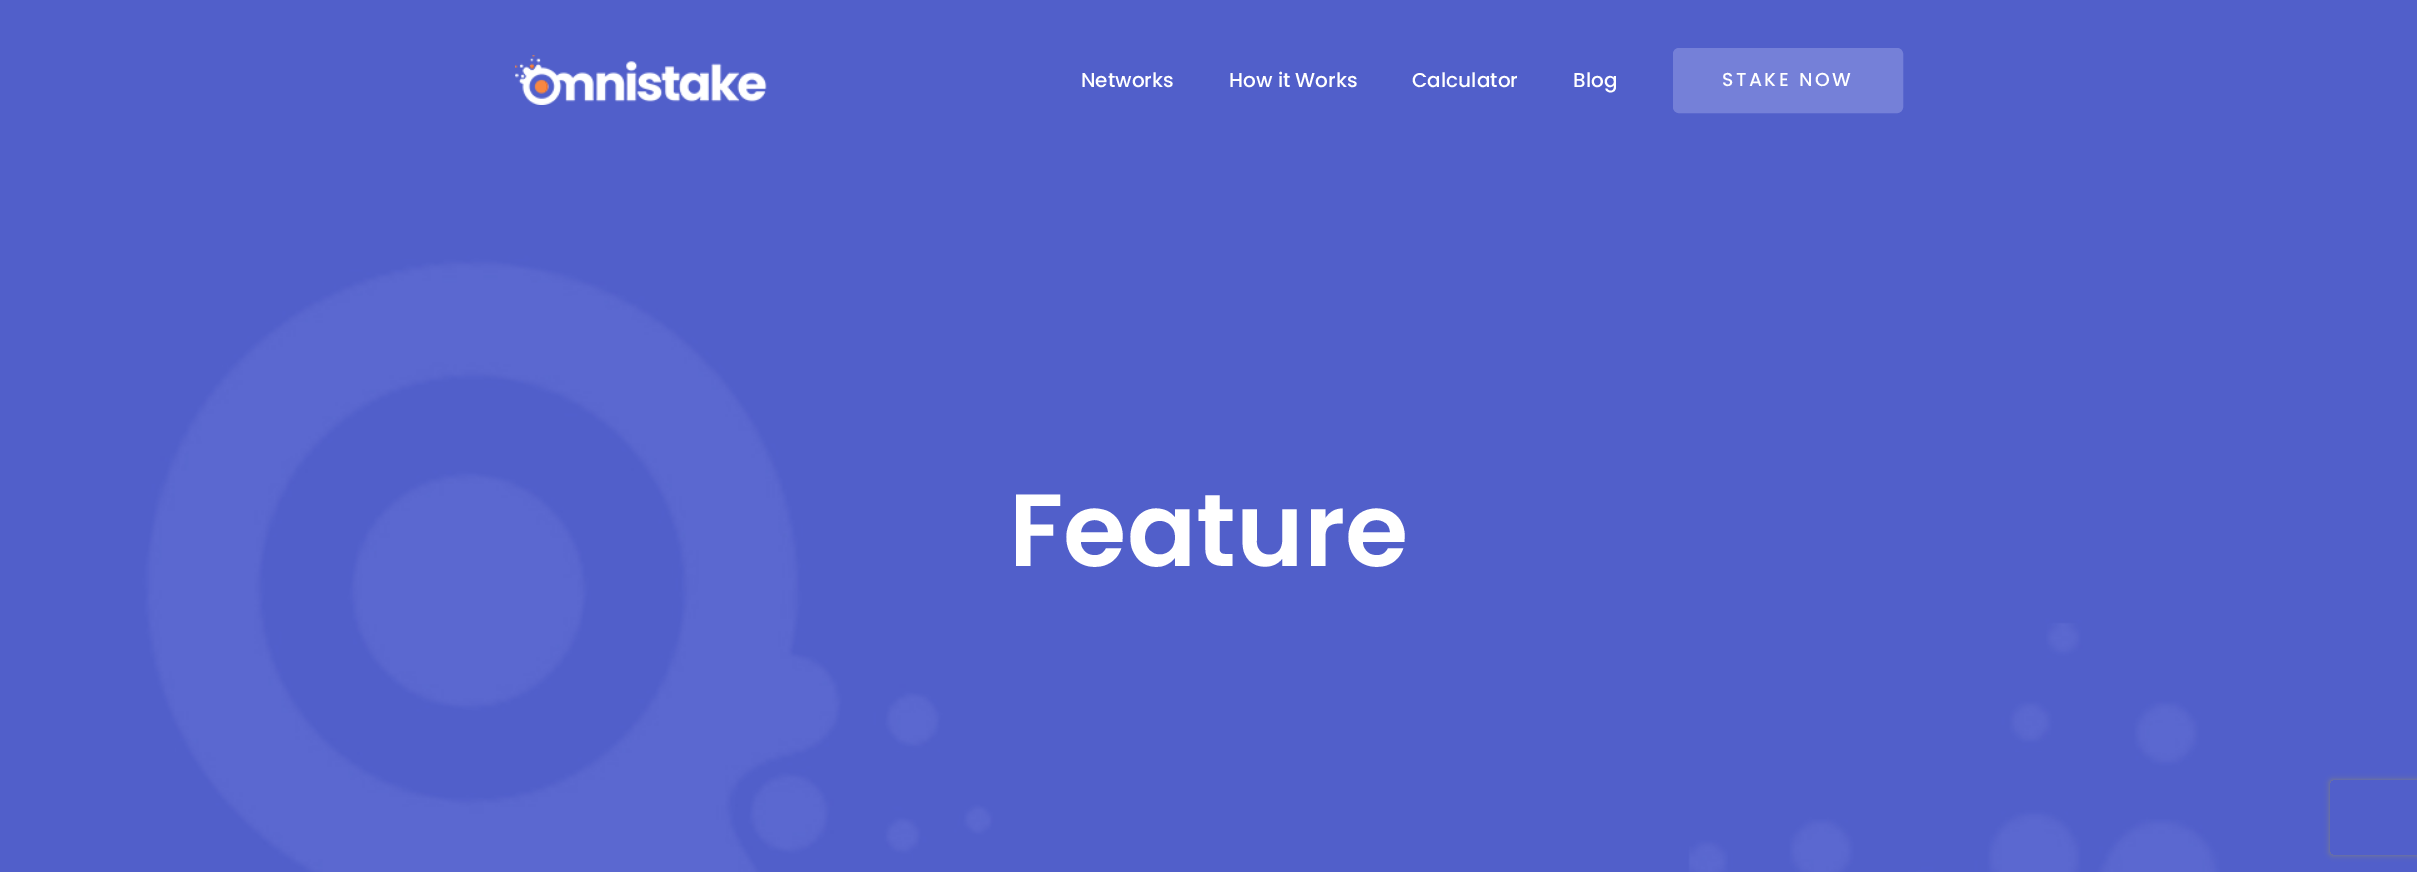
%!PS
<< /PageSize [2417 872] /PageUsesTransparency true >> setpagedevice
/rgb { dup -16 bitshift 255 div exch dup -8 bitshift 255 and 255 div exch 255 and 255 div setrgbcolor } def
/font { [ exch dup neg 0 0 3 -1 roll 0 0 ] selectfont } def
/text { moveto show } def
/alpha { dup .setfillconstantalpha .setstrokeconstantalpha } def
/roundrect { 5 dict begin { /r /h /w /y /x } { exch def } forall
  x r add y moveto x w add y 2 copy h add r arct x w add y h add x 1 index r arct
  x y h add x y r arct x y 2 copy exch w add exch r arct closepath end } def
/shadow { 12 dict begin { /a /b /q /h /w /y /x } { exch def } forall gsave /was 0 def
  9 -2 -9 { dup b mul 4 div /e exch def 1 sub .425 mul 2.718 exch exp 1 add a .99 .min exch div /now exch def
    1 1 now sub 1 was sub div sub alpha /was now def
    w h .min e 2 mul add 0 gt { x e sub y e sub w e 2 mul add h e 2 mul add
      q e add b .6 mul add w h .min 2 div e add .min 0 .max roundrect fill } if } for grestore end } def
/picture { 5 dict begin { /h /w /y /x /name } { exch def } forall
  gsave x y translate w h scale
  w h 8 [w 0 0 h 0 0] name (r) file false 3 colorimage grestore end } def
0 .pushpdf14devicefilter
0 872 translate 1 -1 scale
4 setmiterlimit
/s1 { /Poppins-Medium 20 font 16#FFFFFF rgb } def
/s2 { /Poppins-SemiBold 102.5 font 16#FFFFFF rgb } def
16#FFFFFF rgb
0 0 2417 872 rectfill
(pic2.raw) 0 0 2417 872 picture
(pic1.raw) 515 55 252 50 picture
s1
(Networks) 1081 87 text
(How it Works) 1229 87 text
(Calculator) 1412 87 text
(Blog) 1573 87 text
16#7580D8 rgb
1674.5 49.5 227 62 4.5 roundrect gsave fill grestore
3 setlinewidth
stroke
/Poppins-Medium 18.75 font
16#FFFFFF rgb
1722 86 moveto 2.5 0 (STAKE NOW) ashow
s2
(Feature) 1009 566 text
gsave
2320 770 moveto 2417 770 lineto 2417 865 lineto 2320 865 lineto closepath 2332.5 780 moveto 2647.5 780 lineto 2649 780 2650 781 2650 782.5 curveto 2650 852.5 lineto 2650 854 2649 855 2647.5 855 curveto 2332.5 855 lineto 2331 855 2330 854 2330 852.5 curveto 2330 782.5 lineto 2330 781 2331 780 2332.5 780 curveto closepath eoclip newpath
16#808080 rgb
2330 780 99 75 2.5 3 1 shadow
grestore
.poppdf14devicefilter showpage
